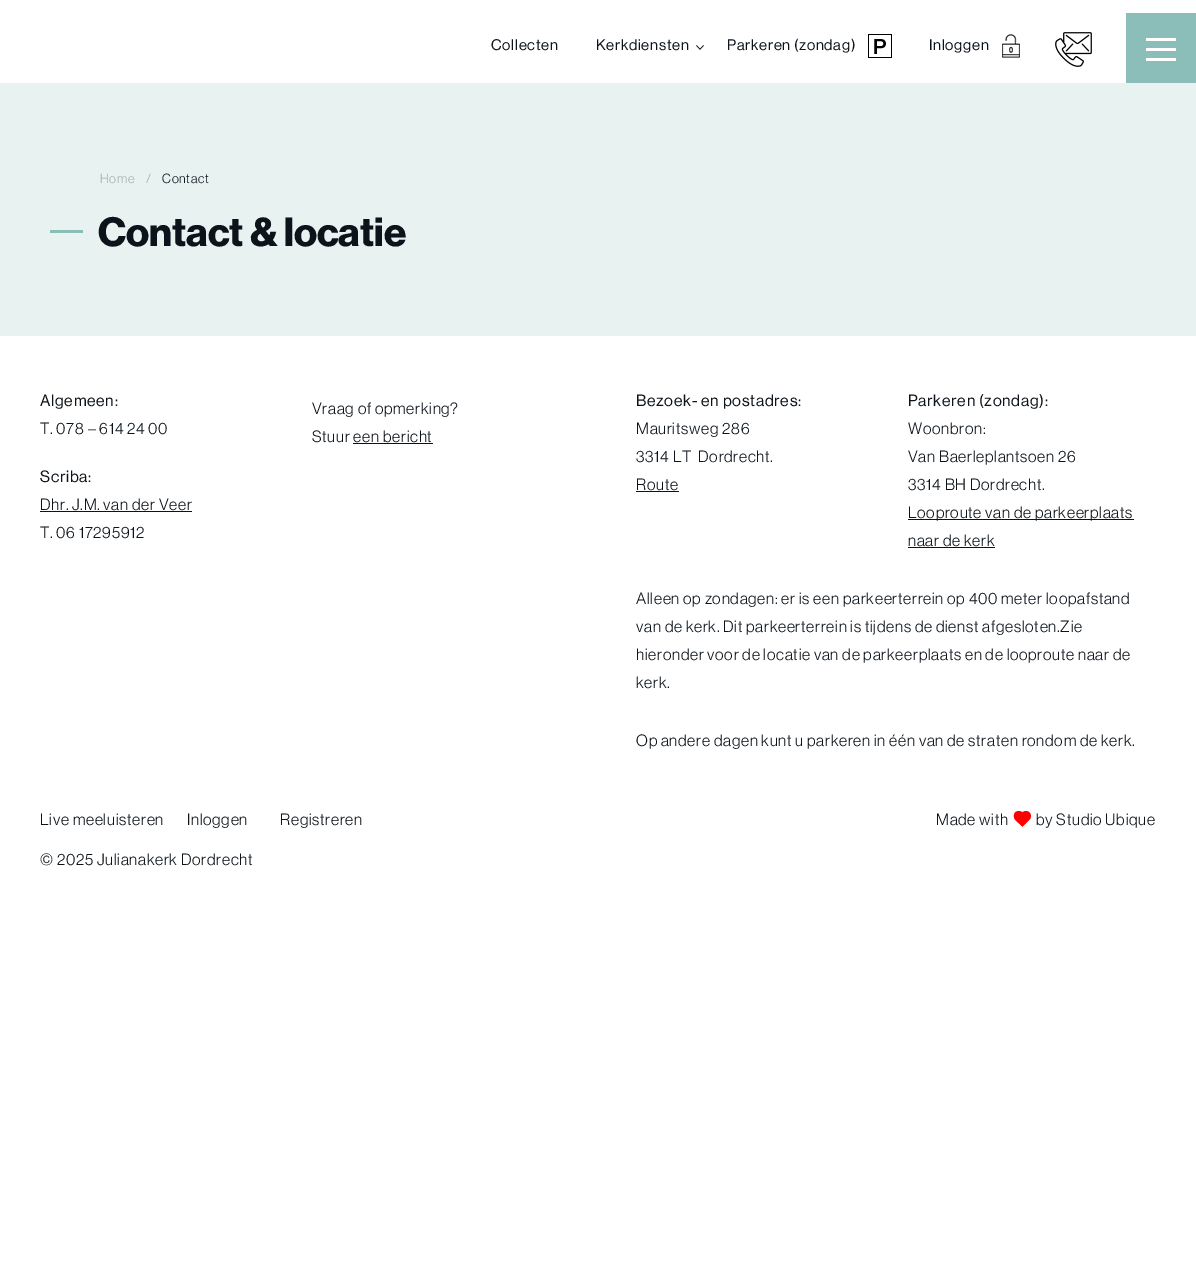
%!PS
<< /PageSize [1196 1271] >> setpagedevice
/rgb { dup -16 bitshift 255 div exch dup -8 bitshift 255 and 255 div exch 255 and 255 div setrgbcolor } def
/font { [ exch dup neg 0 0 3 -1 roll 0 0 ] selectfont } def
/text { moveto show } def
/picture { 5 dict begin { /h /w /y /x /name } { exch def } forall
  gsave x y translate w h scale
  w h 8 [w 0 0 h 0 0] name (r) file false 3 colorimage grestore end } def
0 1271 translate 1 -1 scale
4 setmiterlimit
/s1 { /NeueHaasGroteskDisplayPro-Bold 40 font 16#0C131A rgb } def
16#FFFFFF rgb
0 0 1196 1271 rectfill
/NeueHaasGroteskDisplayPro-Medium 15 font
16#0C131A rgb
491 50 moveto 0.7 0 (Collecten) ashow
(pic1.raw) 696 45 8 5 picture
596 50 moveto 0.7 0 (Kerkdiensten) ashow
727 50 moveto 0.7 0 (Parkeren \(zondag\)) ashow
(pic2.raw) 868 34 24 24 picture
929 50 moveto 0.7 0 (Inloggen) ashow
(pic3.raw) 1002 34 18 24 picture
(pic4.raw) 1055 32 37 35 picture
16#8BBEB8 rgb
1126 13 70 70 rectfill
(pic5.raw) 1146 38 30 23 picture
16#E8F2F1 rgb
0 83 1196 253 rectfill
/NeueHaasGroteskDisplayPro-Regular 13 font
16#A6AFB0 rgb
100 183 moveto 0.7 0 (Home) ashow
146 183 moveto 0.7 0 (/) ashow
16#0C131A rgb
162 183 moveto 0.7 0 (Contact) ashow
16#8BBEB8 rgb
50 230 33 3 rectfill
s1
(Contact & locatie) 98 246 text
/NeueHaasGroteskDisplayPro-Medium 16 font
40 406 moveto 0.7 0 (Algemeen:) ashow
/NeueHaasGroteskDisplayPro-Regular 16 font
40 434 moveto 0.7 0 (T. 078 – 614 24 00) ashow
/NeueHaasGroteskDisplayPro-Medium 16 font
40 482 moveto 0.7 0 (Scriba:) ashow
/NeueHaasGroteskDisplayPro-Regular 16 font
40 510 moveto 0.7 0 (Dhr. J.M. van der Veer) ashow
40 511 152 1 rectfill
40 538 moveto 0.7 0 (T. 06 17295912) ashow
312 414 moveto 0.7 0 (Vraag of opmerking?) ashow
312 442 moveto 0.7 0 (Stuur een bericht) ashow
353 443 80 1 rectfill
/NeueHaasGroteskDisplayPro-Medium 16 font
636 406 moveto 0.7 0 (Bezoek- en postadres:) ashow
/NeueHaasGroteskDisplayPro-Regular 16 font
636 434 moveto 0.7 0 (Mauritsweg 286) ashow
636 462 moveto 0.7 0 (3314 LT  Dordrecht.) ashow
636 490 moveto 0.7 0 (Route) ashow
636 491 43 1 rectfill
/NeueHaasGroteskDisplayPro-Medium 16 font
908 406 moveto 0.7 0 (Parkeren \(zondag\):) ashow
/NeueHaasGroteskDisplayPro-Regular 16 font
908 434 moveto 0.7 0 (Woonbron:) ashow
908 462 moveto 0.7 0 (Van Baerleplantsoen 26) ashow
908 490 moveto 0.7 0 (3314 BH Dordrecht.) ashow
908 519 226 1 rectfill
908 518 moveto 0.7 0 (Looproute van de parkeerplaats) ashow
908 546 moveto 0.7 0 (naar de kerk) ashow
908 547 87 1 rectfill
636 604 moveto 0.7 0 (Alleen op zondagen: er is een parkeerterrein op 400 meter loopafstand) ashow
636 632 moveto 0.7 0 (van de kerk. Dit parkeerterrein is tijdens de dienst afgesloten.Zie) ashow
636 660 moveto 0.7 0 (hieronder voor de locatie van de parkeerplaats en de looproute naar de) ashow
636 688 moveto 0.7 0 (kerk.) ashow
636 746 moveto 0.7 0 (Op andere dagen kunt u parkeren in één van de straten rondom de kerk.) ashow
40 825 moveto 0.7 0 (Live meeluisteren) ashow
187 825 moveto 0.7 0 (Inloggen) ashow
280 825 moveto 0.7 0 (Registreren) ashow
40 865 moveto 0.7 0 (© 2025 Julianakerk Dordrecht) ashow
936 825 moveto 0.7 0 (Made with) ashow
16#FF0000 rgb
1015 812.5 moveto 1017 810.5 1020.5 810.5 1022.5 812.5 curveto 1029.5 819.5 lineto 1022.5 826.5 lineto 1015 819.5 lineto 1013.5 817.5 1013.5 814.5 1015 812.5 curveto closepath fill
1029.5 812.5 moveto 1031.5 814.5 1031.5 817.5 1029.5 819.5 curveto 1022.5 826.5 lineto 1015 819.5 lineto 1022.5 812.5 lineto 1024 810.5 1027.5 810.5 1029.5 812.5 curveto closepath fill
16#0C131A rgb
1036 825 moveto 0.7 0 (by Studio Ubique) ashow
showpage
